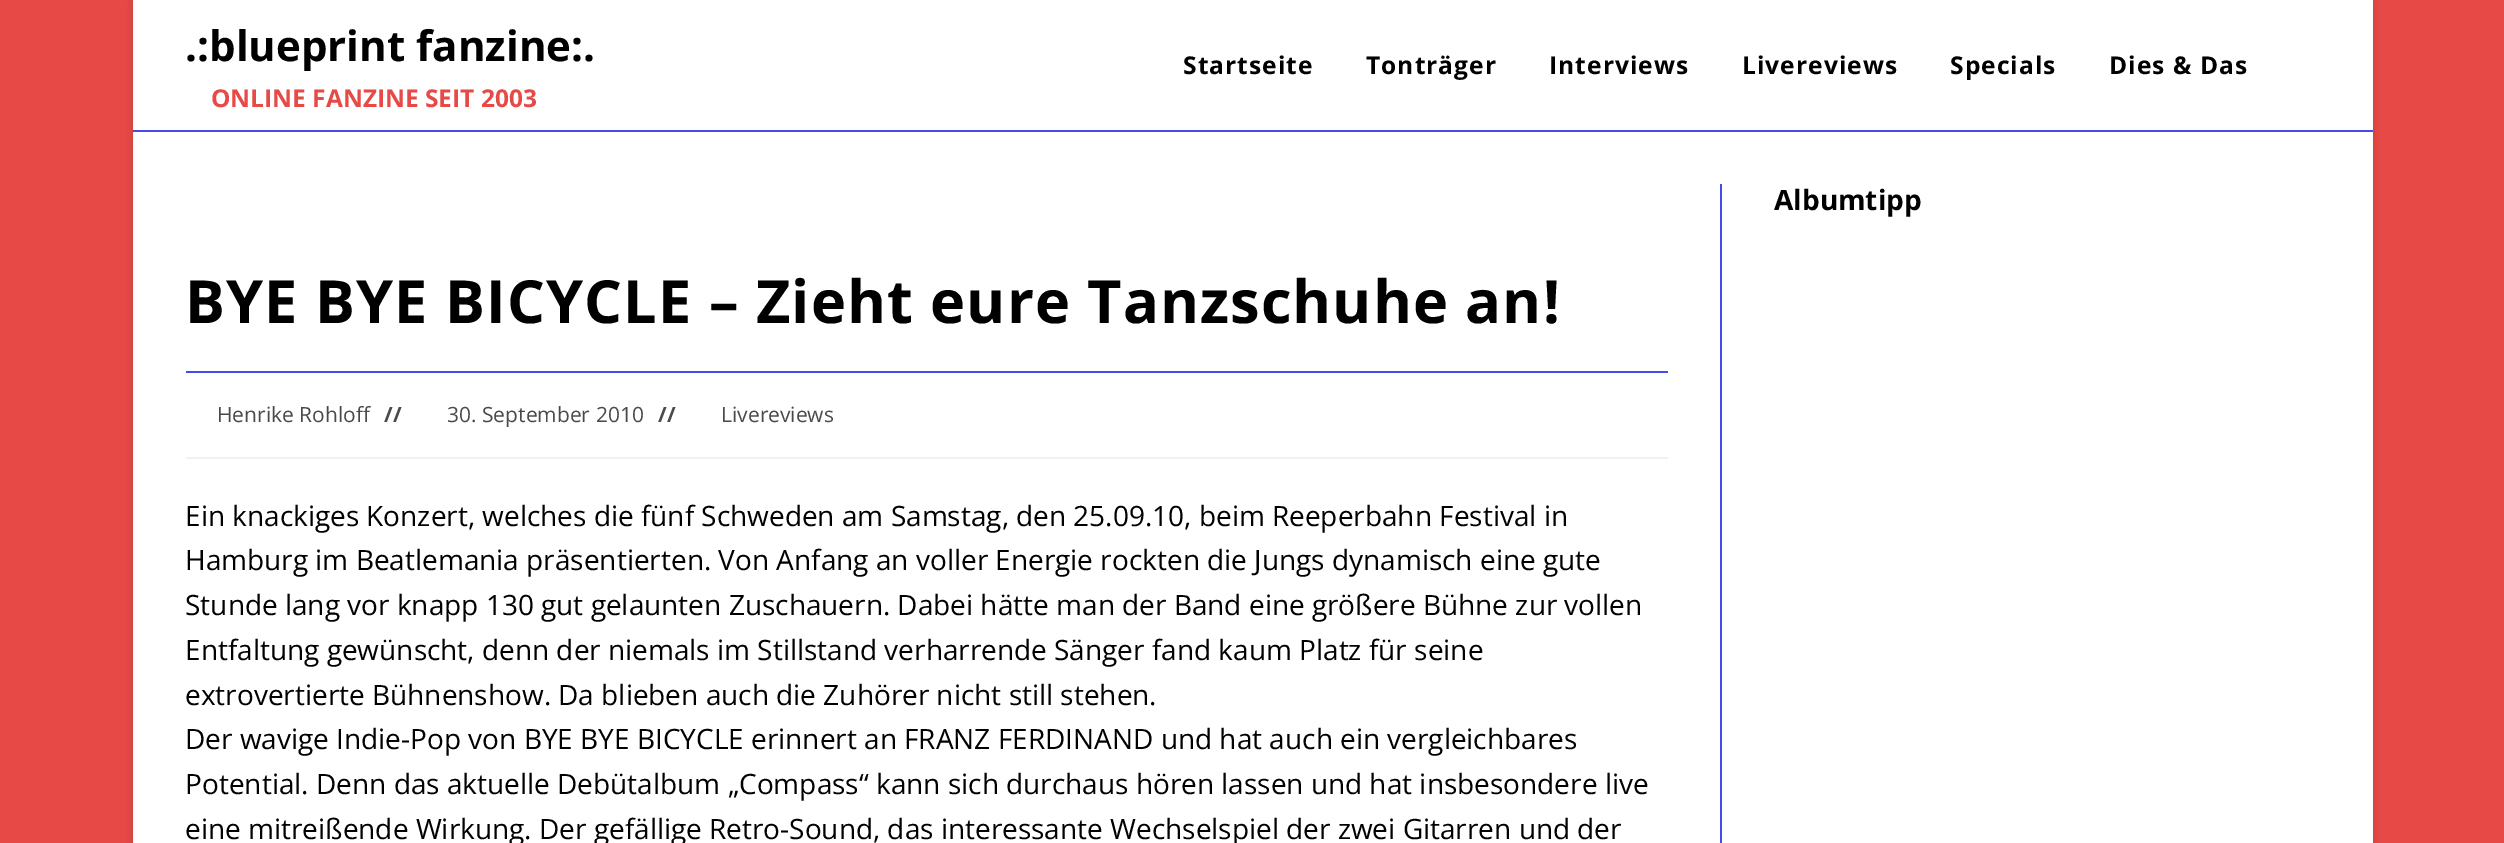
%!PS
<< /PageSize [2504 843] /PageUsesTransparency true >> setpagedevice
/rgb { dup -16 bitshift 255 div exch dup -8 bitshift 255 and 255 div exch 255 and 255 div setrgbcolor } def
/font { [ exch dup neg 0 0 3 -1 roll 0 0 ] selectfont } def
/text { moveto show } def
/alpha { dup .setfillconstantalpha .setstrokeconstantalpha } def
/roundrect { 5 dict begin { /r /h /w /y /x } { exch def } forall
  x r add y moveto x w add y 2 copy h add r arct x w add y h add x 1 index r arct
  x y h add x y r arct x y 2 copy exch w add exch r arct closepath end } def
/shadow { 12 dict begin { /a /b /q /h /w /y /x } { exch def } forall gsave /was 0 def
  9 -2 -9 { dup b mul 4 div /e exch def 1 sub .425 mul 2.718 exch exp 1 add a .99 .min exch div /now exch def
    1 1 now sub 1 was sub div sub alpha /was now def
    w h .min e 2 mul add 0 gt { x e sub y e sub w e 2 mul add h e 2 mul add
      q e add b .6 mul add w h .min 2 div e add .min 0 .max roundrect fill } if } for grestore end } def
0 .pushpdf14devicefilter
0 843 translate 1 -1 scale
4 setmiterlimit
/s1 { /OpenSans-Bold 42 font 16#000000 rgb } def
/s2 { /OpenSans-Bold 24.5 font 16#E64946 rgb } def
/s3 { /OpenSans-Bold 28 font 16#000000 rgb } def
/s4 { /OpenSans-Regular 21 font 16#4A4A4A rgb } def
/s5 { /OpenSans-Bold 21 font 16#4A4A4A rgb } def
/s6 { /OpenSans-Regular 28 font 16#000000 rgb } def
16#E64946 rgb
0 0 2504 843 rectfill
16#000000 rgb
133 2 2240 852 0 3.5 0.15 shadow
16#FFFFFF rgb
133 0 2240 843 rectfill
16#454DE8 rgb
133 130 2240 2 rectfill
s1
(.:blueprint fanzine:.) 185 61 text
s2
(ONLINE FANZINE SEIT 2003) 211 107 text
16#000000 rgb
1183 74 moveto 1.05 0 (Startseite) ashow
1366 74 moveto 1.05 0 (Tonträger) ashow
1549 74 moveto 1.05 0 (Interviews) ashow
1742 74 moveto 1.05 0 (Livereviews) ashow
1950 74 moveto 1.05 0 (Specials) ashow
2109 74 moveto 1.05 0 (Dies & Das) ashow
s3
(Albumtipp) 1774 210 text
16#454DE8 rgb
1720 184 2 659 rectfill
186 371 1482 2 rectfill
/OpenSans-Bold 59.5 font
16#000000 rgb
185 323 moveto 1.05 0 (BYE BYE BICYCLE – Zieht eure Tanzschuhe an!) ashow
16#F1F1F1 rgb
186 457 1482 2 rectfill
s4
(Henrike Rohloff) 217 422 text
s5
(//) 384 422 text
s4
(30. September 2010) 447 422 text
s5
(//) 658 422 text
s4
(Livereviews) 721 422 text
s6
(Ein knackiges Konzert, welches die fünf Schweden am Samstag, den 25.09.10, beim Reeperbahn Festival in) 185 526 text
(Hamburg im Beatlemania präsentierten. Von Anfang an voller Energie rockten die Jungs dynamisch eine gute) 185 570 text
(Stunde lang vor knapp 130 gut gelaunten Zuschauern. Dabei hätte man der Band eine größere Bühne zur vollen) 185 615 text
(Entfaltung gewünscht, denn der niemals im Stillstand verharrende Sänger fand kaum Platz für seine) 185 660 text
(extrovertierte Bühnenshow. Da blieben auch die Zuhörer nicht still stehen.) 185 705 text
(Der wavige Indie-Pop von BYE BYE BICYCLE erinnert an FRANZ FERDINAND und hat auch ein vergleichbares) 185 749 text
(Potential. Denn das aktuelle Debütalbum „Compass“ kann sich durchaus hören lassen und hat insbesondere live) 185 794 text
(eine mitreißende Wirkung. Der gefällige Retro-Sound, das interessante Wechselspiel der zwei Gitarren und der) 185 839 text
.poppdf14devicefilter showpage
